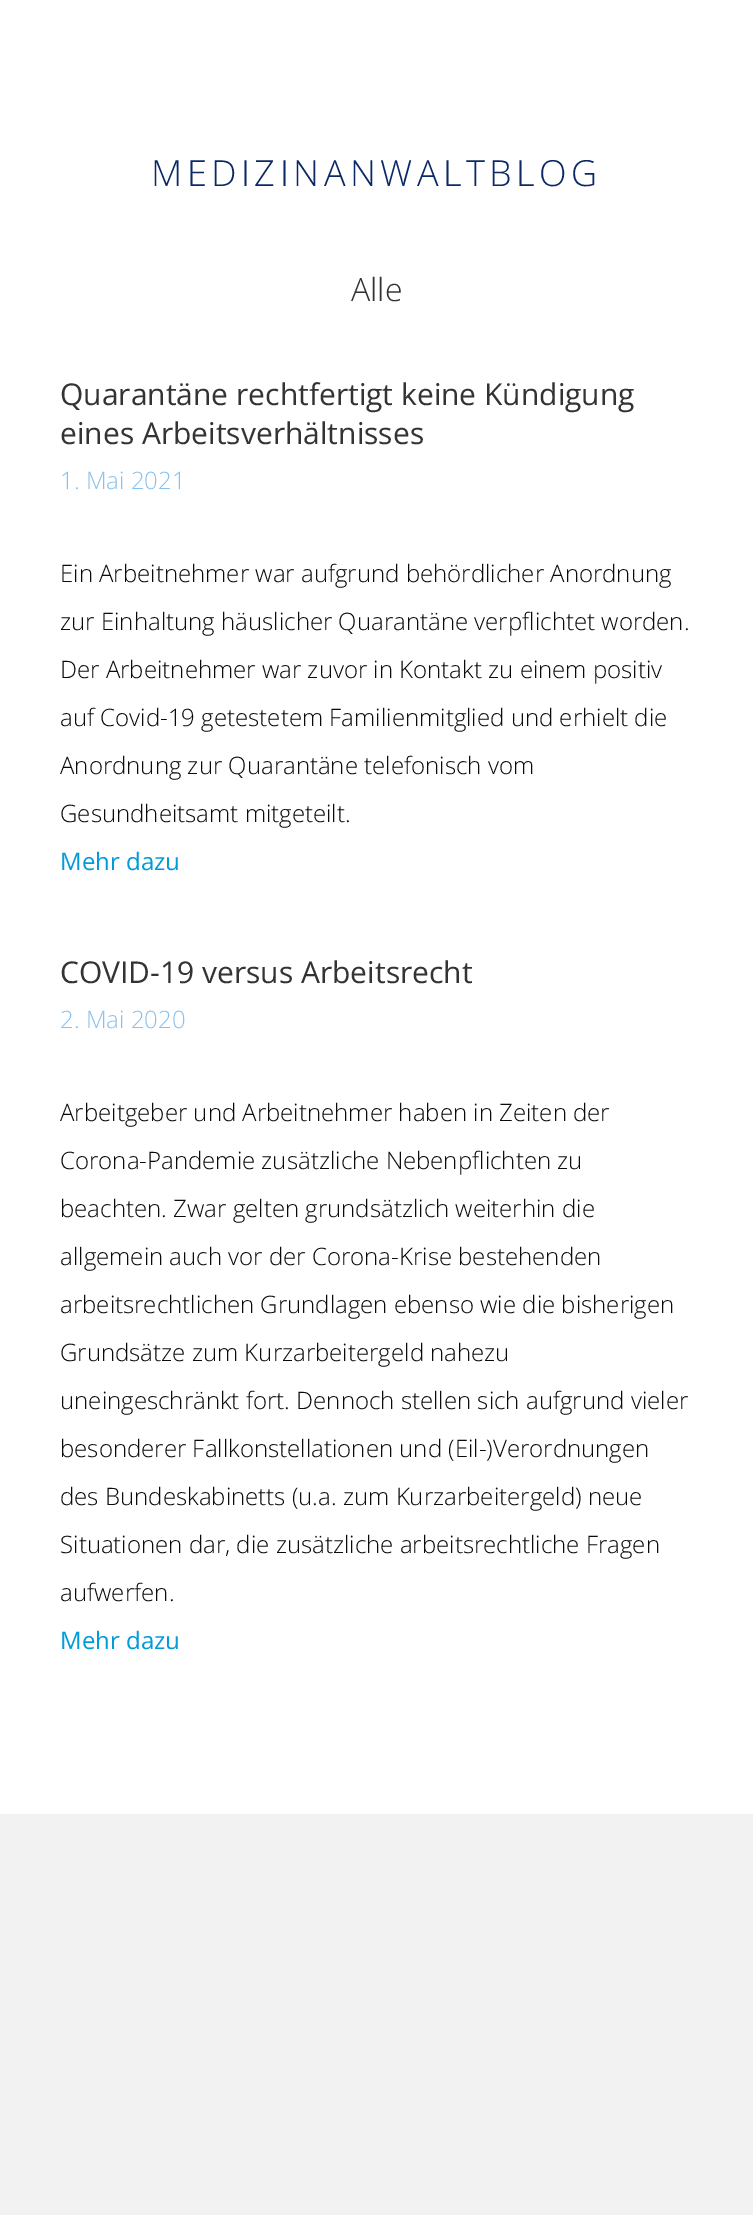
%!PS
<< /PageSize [753 2215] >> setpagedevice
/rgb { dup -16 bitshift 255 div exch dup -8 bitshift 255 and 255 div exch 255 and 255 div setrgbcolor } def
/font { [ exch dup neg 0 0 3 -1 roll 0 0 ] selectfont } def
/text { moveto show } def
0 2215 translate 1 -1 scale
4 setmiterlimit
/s1 { /OpenSans-Light 32 font 16#333333 rgb } def
/s2 { /OpenSans-Regular 30 font 16#333333 rgb } def
/s3 { /OpenSans-Light 24 font 16#87C1ED rgb } def
/s4 { /OpenSans-Light 24 font 16#0A0A0A rgb } def
/s5 { /OpenSans-Regular 24 font 16#009BDB rgb } def
16#F2F2F2 rgb
0 0 753 2215 rectfill
16#FFFFFF rgb
0 0 753 1814 rectfill
/OpenSans-Light 36 font
16#092865 rgb
151 186 moveto 4.5 0 (MEDIZINANWALTBLOG) ashow
s1
(Alle) 351 301 text
s2
(Quarantäne rechtfertigt keine Kündigung) 60 405 text
(eines Arbeitsverhältnisses) 60 444 text
s3
(1. Mai 2021) 60 489 text
s4
(Ein Arbeitnehmer war aufgrund behördlicher Anordnung) 60 582 text
(zur Einhaltung häuslicher Quarantäne verpflichtet worden.) 60 630 text
(Der Arbeitnehmer war zuvor in Kontakt zu einem positiv) 60 678 text
(auf Covid-19 getestetem Familienmitglied und erhielt die) 60 726 text
(Anordnung zur Quarantäne telefonisch vom) 60 774 text
(Gesundheitsamt mitgeteilt.) 60 822 text
s5
(Mehr dazu) 60 870 text
s2
(COVID-19 versus Arbeitsrecht) 60 983 text
s3
(2. Mai 2020) 60 1028 text
s4
(Arbeitgeber und Arbeitnehmer haben in Zeiten der) 60 1121 text
(Corona-Pandemie zusätzliche Nebenpflichten zu) 60 1169 text
(beachten. Zwar gelten grundsätzlich weiterhin die) 60 1217 text
(allgemein auch vor der Corona-Krise bestehenden) 60 1265 text
(arbeitsrechtlichen Grundlagen ebenso wie die bisherigen) 60 1313 text
(Grundsätze zum Kurzarbeitergeld nahezu) 60 1361 text
(uneingeschränkt fort. Dennoch stellen sich aufgrund vieler) 60 1409 text
(besonderer Fallkonstellationen und \(Eil-\)Verordnungen) 60 1457 text
(des Bundeskabinetts \(u.a. zum Kurzarbeitergeld\) neue) 60 1505 text
(Situationen dar, die zusätzliche arbeitsrechtliche Fragen) 60 1553 text
(aufwerfen.) 60 1601 text
s5
(Mehr dazu) 60 1649 text
showpage
